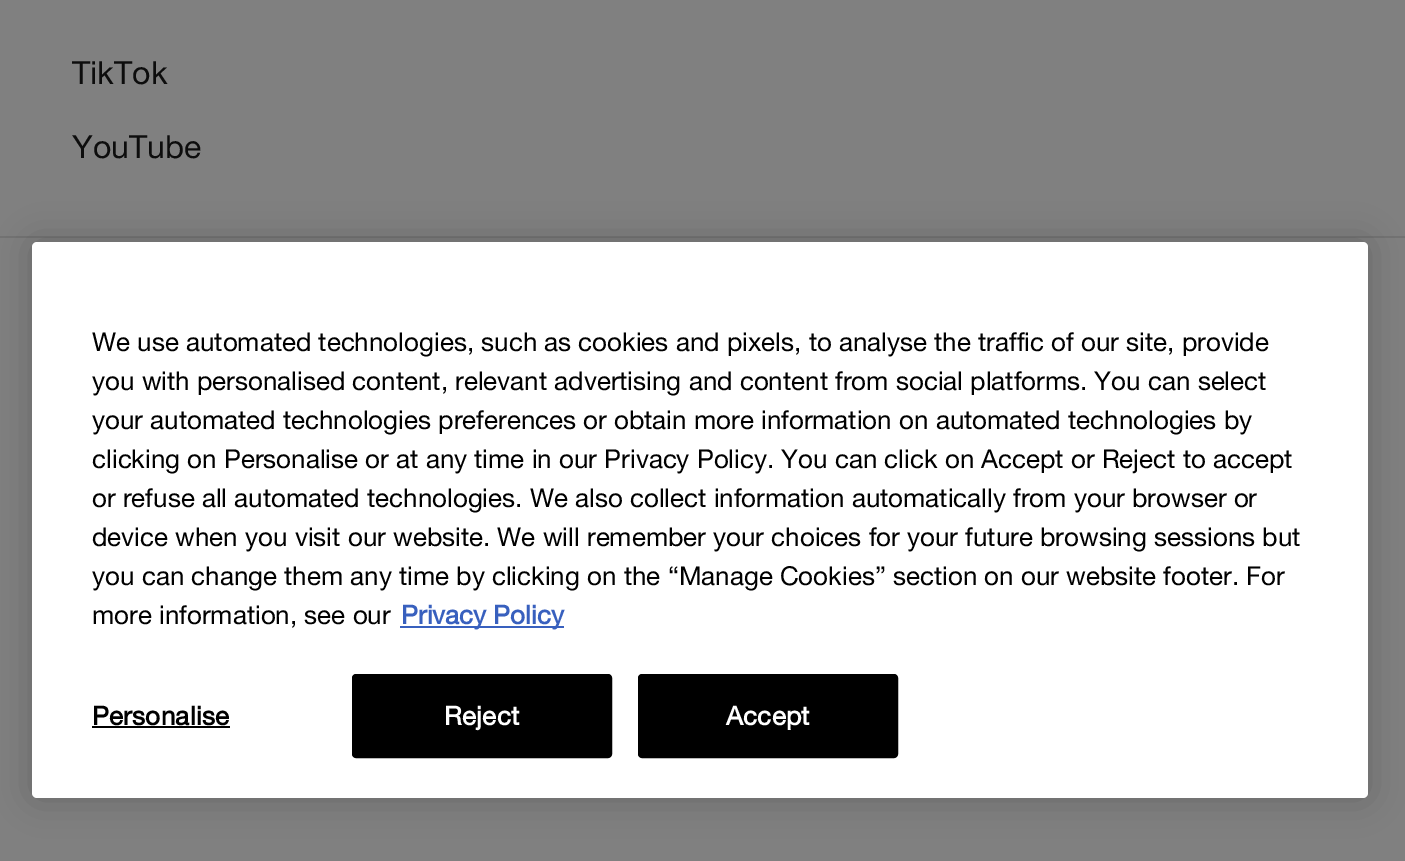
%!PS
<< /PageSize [1405 861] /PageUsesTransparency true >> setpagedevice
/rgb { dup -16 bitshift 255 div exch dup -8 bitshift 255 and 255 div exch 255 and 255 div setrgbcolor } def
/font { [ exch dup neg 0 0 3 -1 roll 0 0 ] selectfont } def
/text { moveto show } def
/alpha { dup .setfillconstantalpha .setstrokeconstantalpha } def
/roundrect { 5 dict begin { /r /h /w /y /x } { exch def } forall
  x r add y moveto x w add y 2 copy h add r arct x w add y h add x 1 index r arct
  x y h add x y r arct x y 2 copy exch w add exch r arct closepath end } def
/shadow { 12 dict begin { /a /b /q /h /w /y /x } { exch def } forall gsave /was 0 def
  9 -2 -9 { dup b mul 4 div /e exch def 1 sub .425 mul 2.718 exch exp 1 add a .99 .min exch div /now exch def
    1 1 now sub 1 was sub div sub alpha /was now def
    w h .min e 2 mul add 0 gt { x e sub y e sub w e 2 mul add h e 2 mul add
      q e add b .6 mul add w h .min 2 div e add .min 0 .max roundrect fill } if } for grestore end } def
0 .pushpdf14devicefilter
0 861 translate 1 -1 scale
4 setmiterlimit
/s1 { /HelveticaNeue-Regular 32 font 16#0D0D0D rgb } def
/s2 { /HelveticaNeue-Regular 26 font 16#000000 rgb } def
/s3 { /HelveticaNeue-Bold 26 font 16#3860BE rgb } def
16#808080 rgb
0 0 1405 861 rectfill
s1
(TikTok) 72 84 text
(YouTube) 72 158 text
16#737373 rgb
0 236 1405 2 rectfill
16#000000 rgb
32 242 1336 556 5 18 0.2 shadow
16#FFFFFF rgb
32 242 1336 556 5 roundrect fill
s2
(We use automated technologies, such as cookies and pixels, to analyse the traffic of our site, provide) 92 351 text
(you with personalised content, relevant advertising and content from social platforms. You can select) 92 390 text
(your automated technologies preferences or obtain more information on automated technologies by) 92 429 text
(clicking on Personalise or at any time in our Privacy Policy. You can click on Accept or Reject to accept) 92 468 text
(or refuse all automated technologies. We also collect information automatically from your browser or) 92 507 text
(device when you visit our website. We will remember your choices for your future browsing sessions but) 92 546 text
(you can change them any time by clicking on the “Manage Cookies” section on our website footer. For) 92 585 text
(more information, see our) 92 624 text
16#3860BE rgb
400 626 164 2 rectfill
s3
(Privacy Policy) 401 624 text
16#000000 rgb
92 725 moveto 0.25 0 (Personalise) ashow
92 726 138 2 rectfill
353 675 258 82 3 roundrect gsave fill grestore
2 setlinewidth
stroke
16#FFFFFF rgb
444 725 moveto 0.25 0 (Reject) ashow
16#000000 rgb
639 675 258 82 3 roundrect gsave fill grestore
stroke
16#FFFFFF rgb
726 725 moveto 0.25 0 (Accept) ashow
.poppdf14devicefilter showpage
